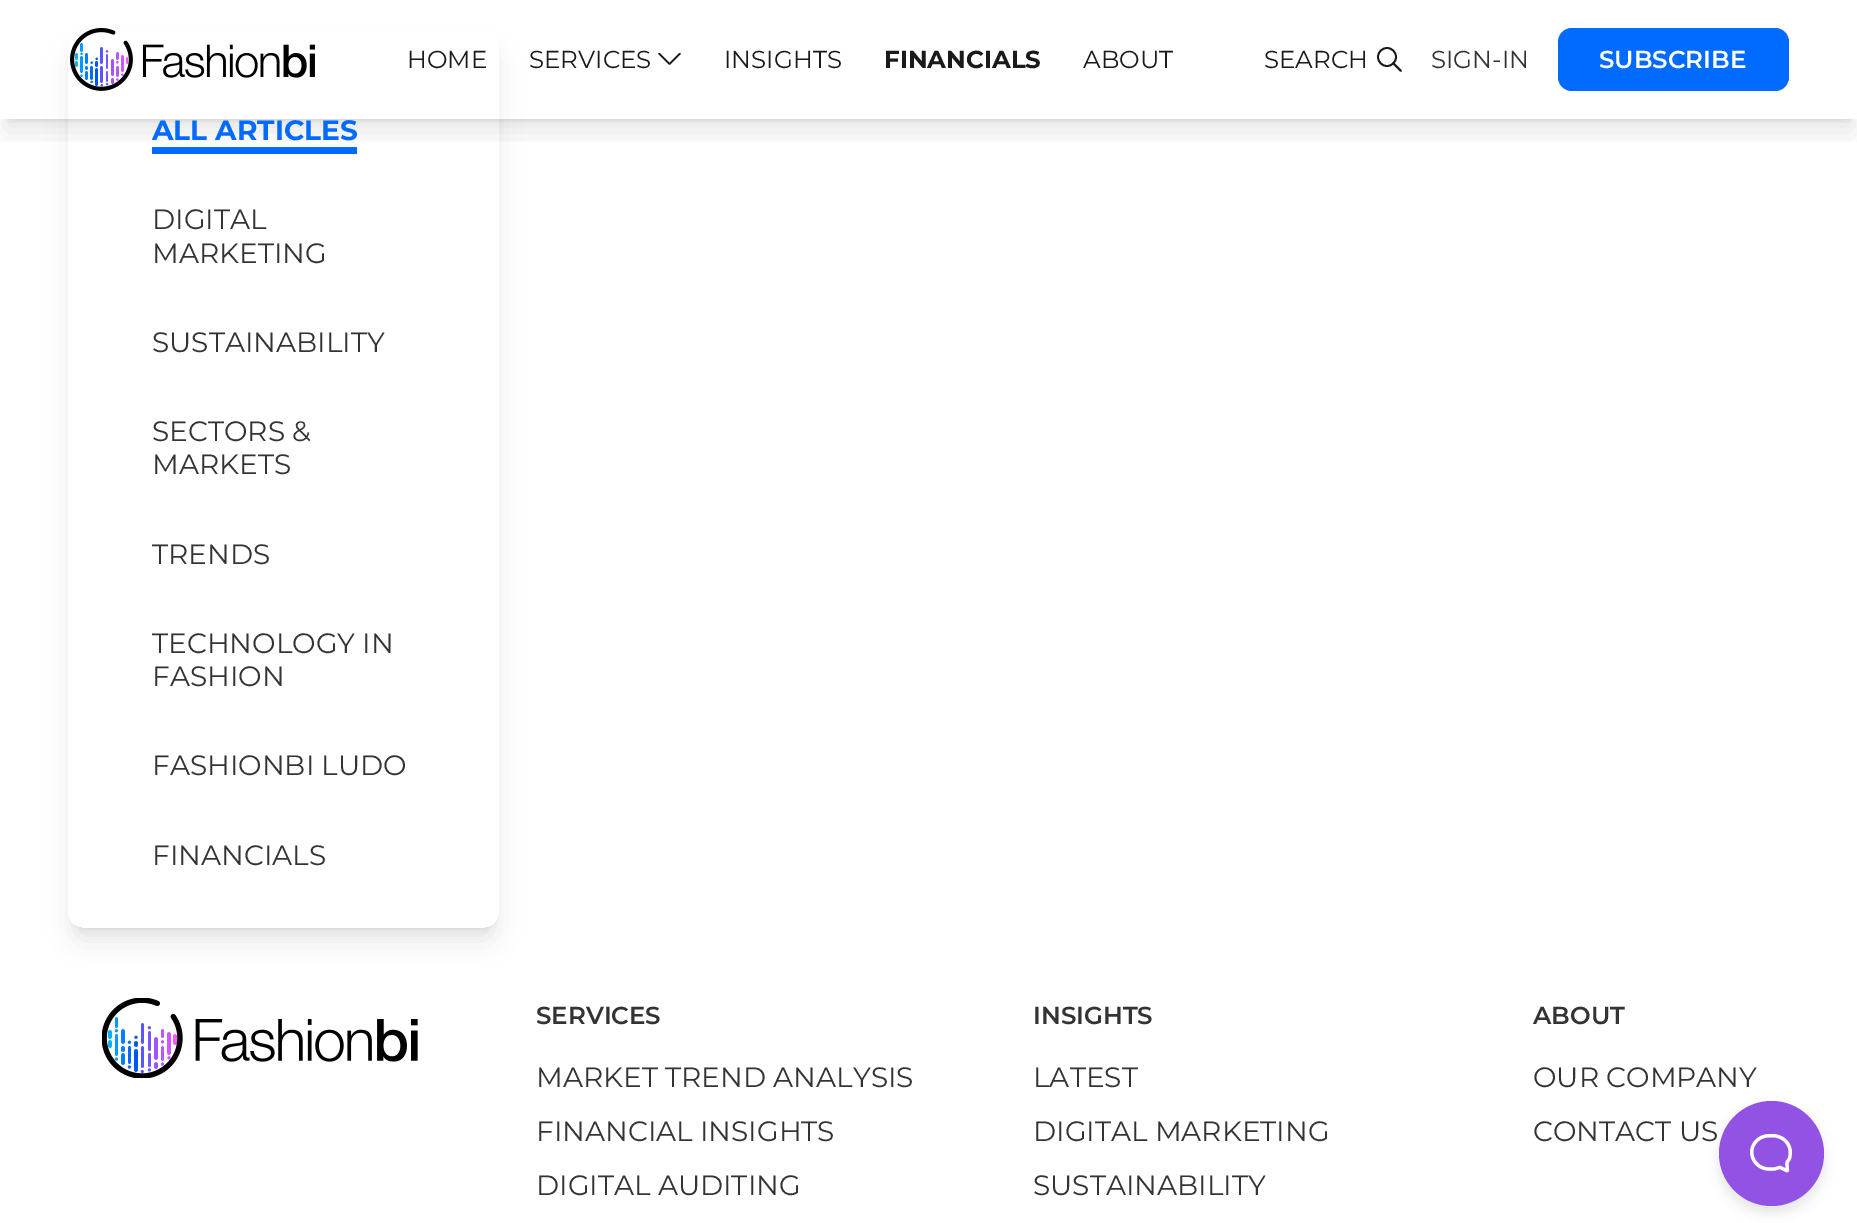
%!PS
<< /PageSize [1857 1223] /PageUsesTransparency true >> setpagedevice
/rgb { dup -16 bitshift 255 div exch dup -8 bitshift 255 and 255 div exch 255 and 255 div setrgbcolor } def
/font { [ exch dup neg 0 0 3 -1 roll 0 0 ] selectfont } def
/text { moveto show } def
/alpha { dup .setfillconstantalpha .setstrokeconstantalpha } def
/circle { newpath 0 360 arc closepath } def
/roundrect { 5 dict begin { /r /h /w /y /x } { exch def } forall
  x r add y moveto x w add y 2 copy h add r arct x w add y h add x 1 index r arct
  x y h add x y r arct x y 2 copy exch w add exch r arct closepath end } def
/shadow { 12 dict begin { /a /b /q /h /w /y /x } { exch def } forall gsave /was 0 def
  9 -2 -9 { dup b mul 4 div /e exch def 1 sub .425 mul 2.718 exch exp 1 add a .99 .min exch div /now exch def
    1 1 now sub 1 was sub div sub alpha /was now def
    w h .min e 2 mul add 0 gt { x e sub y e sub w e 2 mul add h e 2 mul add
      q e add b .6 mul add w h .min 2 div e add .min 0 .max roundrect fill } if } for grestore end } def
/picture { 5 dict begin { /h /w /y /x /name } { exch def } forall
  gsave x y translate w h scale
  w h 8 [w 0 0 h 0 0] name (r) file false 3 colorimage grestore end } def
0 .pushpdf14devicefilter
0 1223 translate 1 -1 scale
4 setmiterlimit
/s1 { /Montserrat-Regular 24.5 font 16#1A1A1A rgb } def
/s2 { /Montserrat-Bold 24.5 font 16#1A1A1A rgb } def
/s3 { /Montserrat-Regular 24.5 font 16#333333 rgb } def
/s4 { /Montserrat-SemiBold 24.5 font 16#FFFFFF rgb } def
/s5 { /Montserrat-Bold 28 font 16#016BFF rgb } def
/s6 { /Montserrat-Regular 28 font 16#333333 rgb } def
/s7 { /Montserrat-SemiBold 24.5 font 16#333333 rgb } def
16#FFFFFF rgb
0 0 1857 1223 rectfill
gsave
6 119 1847 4 rectclip
16#000000 rgb
7 14 1845 105 0 5 0.1 shadow
grestore
gsave
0 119 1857 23 rectclip
16#000000 rgb
5 23 1848 108 0 13 0.1 shadow
grestore
(pic1.raw) 70 28 245 63 picture
s1
(HOME) 407 68 text
(SERVICES) 529 68 text
gsave
658 53 25 14 rectclip
1.7 setlinewidth
1 setlinecap
1 setlinejoin
659 53.5 moveto 669.5 64 lineto 680 53.5 lineto stroke
grestore
(INSIGHTS) 724 68 text
s2
(FINANCIALS) 884 68 text
s1
(ABOUT) 1083 68 text
(SEARCH) 1264 68 text
1.8 setlinewidth
1387 57 9 circle stroke
1 setlinecap
1 setlinejoin
1401 71 moveto 1393 63 lineto stroke
s3
(SIGN-IN) 1431 68 text
16#016BFF rgb
1558 28 231 63 14 roundrect fill
s4
(SUBSCRIBE) 1599 68 text
gsave
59 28 moveto 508 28 lineto 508 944 lineto 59 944 lineto closepath 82 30 moveto 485 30 lineto 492.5 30 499 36.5 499 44 curveto 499 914 lineto 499 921.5 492.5 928 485 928 curveto 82 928 lineto 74.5 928 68 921.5 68 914 curveto 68 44 lineto 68 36.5 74.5 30 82 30 curveto closepath eoclip newpath
16#000000 rgb
75 44 417 884 7 5 0.1 shadow
grestore
gsave
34 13 moveto 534 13 lineto 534 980 lineto 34 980 lineto closepath 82 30 moveto 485 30 lineto 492.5 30 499 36.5 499 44 curveto 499 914 lineto 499 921.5 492.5 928 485 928 curveto 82 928 lineto 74.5 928 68 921.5 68 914 curveto 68 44 lineto 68 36.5 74.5 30 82 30 curveto closepath eoclip newpath
16#000000 rgb
74 53 420 887 9 13 0.1 shadow
grestore
s5
(ALL ARTICLES) 152 140 text
152 147 205 7 rectfill
s6
(DIGITAL) 152 229 text
(MARKETING) 152 263 text
(SUSTAINABILITY) 152 352 text
(SECTORS &) 152 441 text
(MARKETS) 152 474 text
(TRENDS) 152 564 text
(TECHNOLOGY IN) 152 653 text
(FASHION) 152 686 text
(FASHIONBI LUDO) 152 775 text
(FINANCIALS) 152 865 text
(pic2.raw) 102 998 316 80 picture
s7
(SERVICES) 536 1024 text
s6
(MARKET TREND ANALYSIS) 536 1087 text
(FINANCIAL INSIGHTS) 536 1141 text
(DIGITAL AUDITING) 536 1195 text
s7
(INSIGHTS) 1033 1024 text
s6
(LATEST) 1033 1087 text
(DIGITAL MARKETING) 1033 1141 text
(SUSTAINABILITY) 1033 1195 text
s7
(ABOUT) 1533 1024 text
s6
(OUR COMPANY) 1533 1087 text
(CONTACT US) 1533 1141 text
16#000000 rgb
1719 1108 105 105 52.5 6 0.1 shadow
16#9253E5 rgb
1771.5 1153.5 52.5 circle fill
(pic3.raw) 1750 1134 42 39 picture
.poppdf14devicefilter showpage
